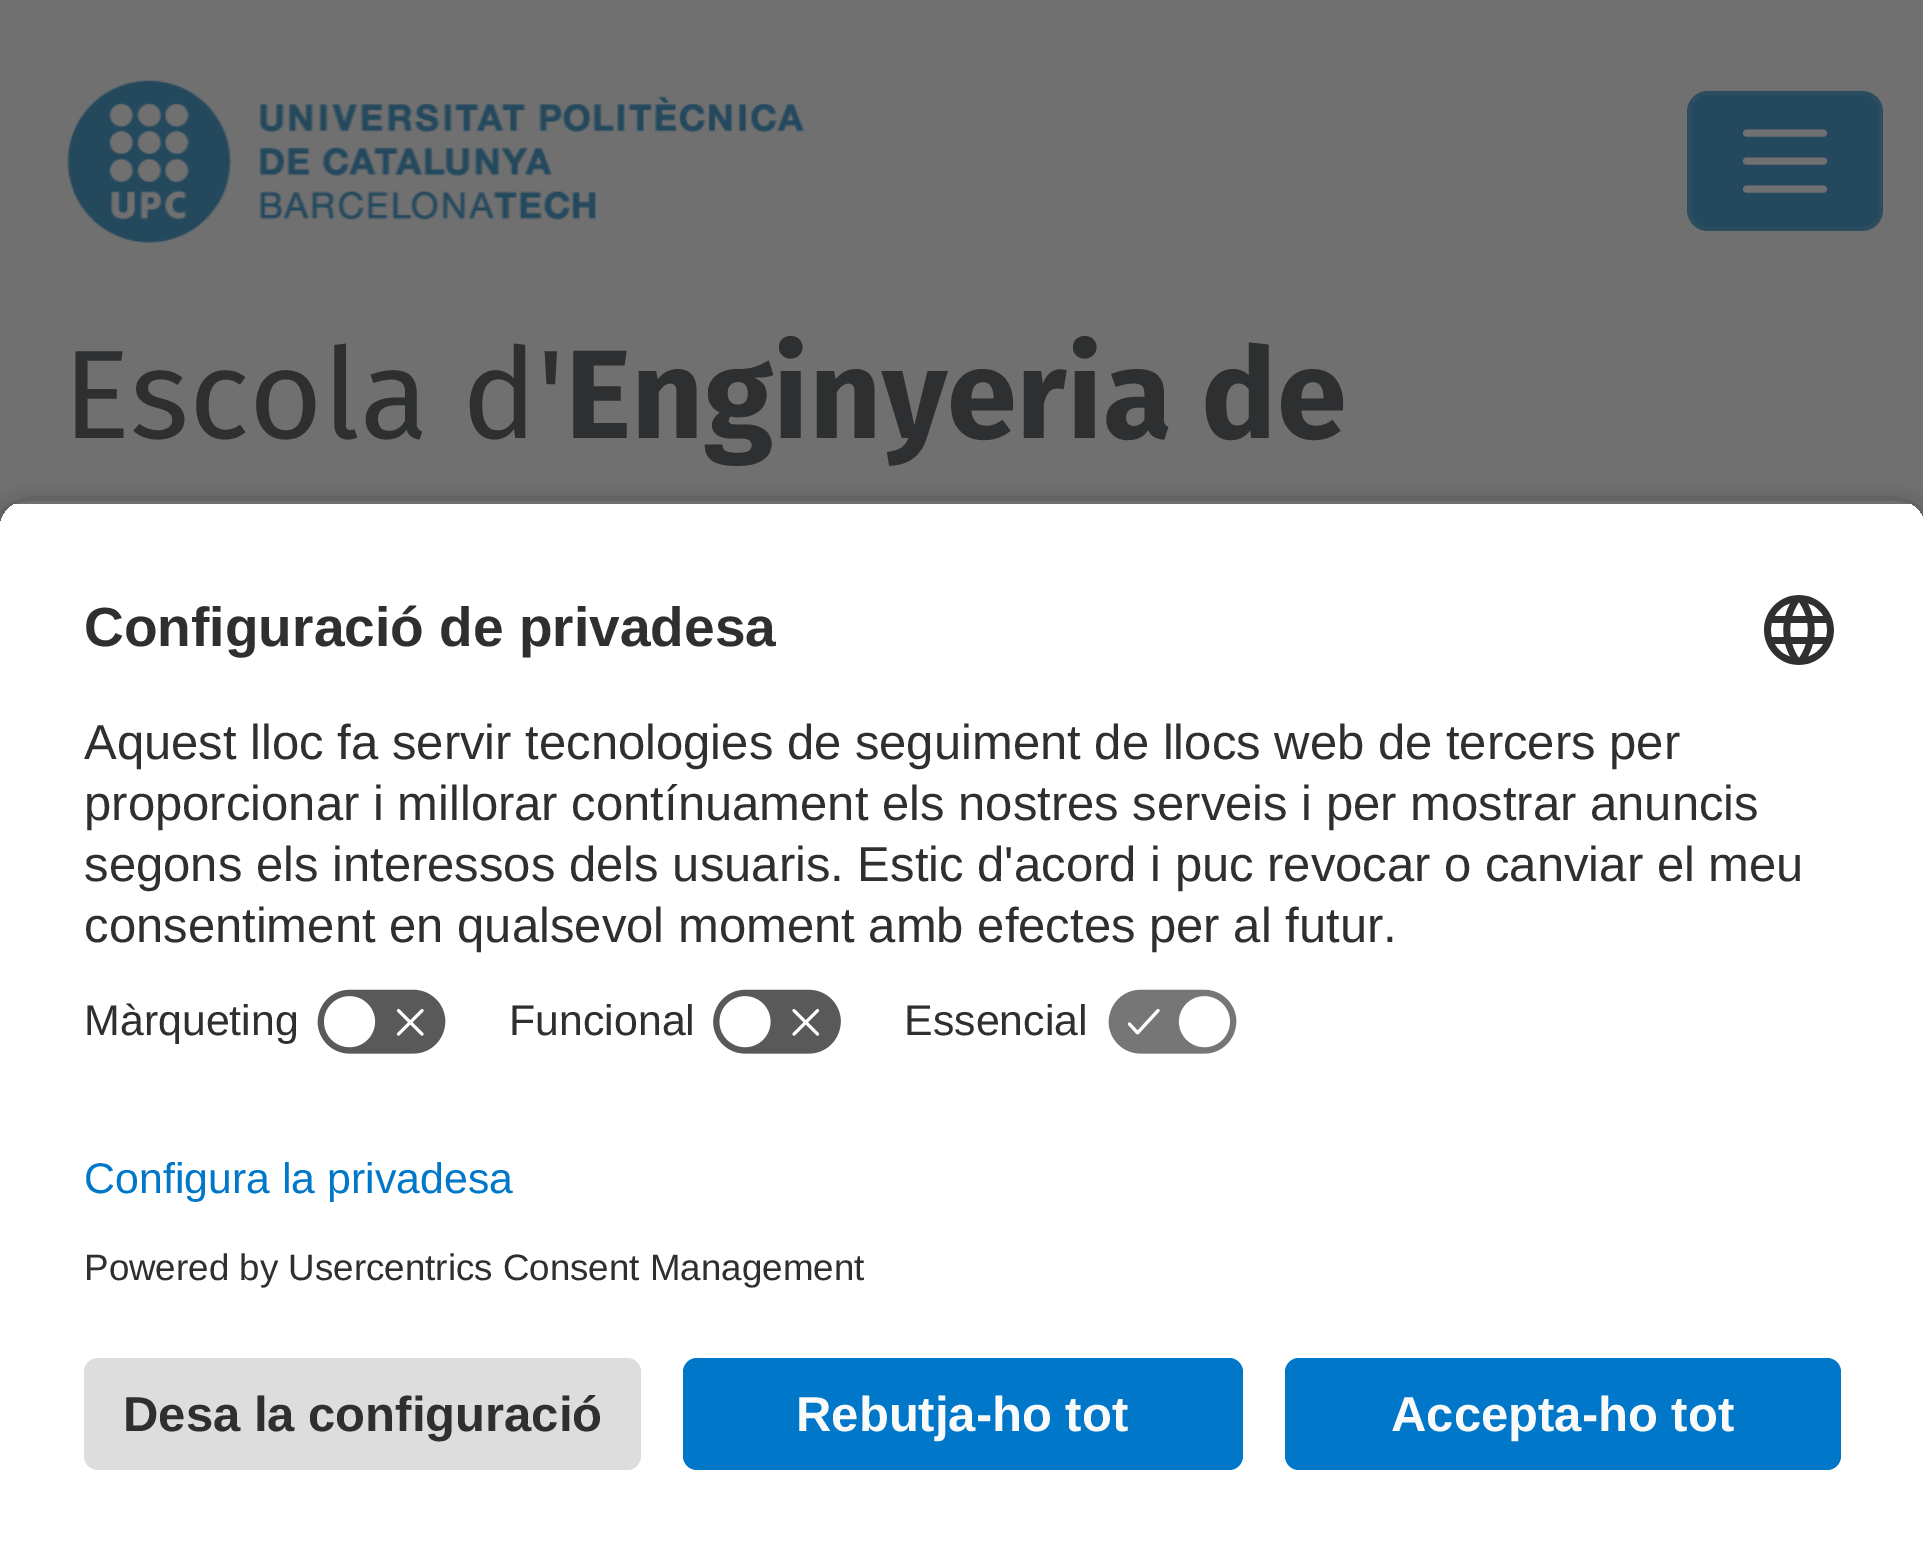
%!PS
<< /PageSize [1923 1553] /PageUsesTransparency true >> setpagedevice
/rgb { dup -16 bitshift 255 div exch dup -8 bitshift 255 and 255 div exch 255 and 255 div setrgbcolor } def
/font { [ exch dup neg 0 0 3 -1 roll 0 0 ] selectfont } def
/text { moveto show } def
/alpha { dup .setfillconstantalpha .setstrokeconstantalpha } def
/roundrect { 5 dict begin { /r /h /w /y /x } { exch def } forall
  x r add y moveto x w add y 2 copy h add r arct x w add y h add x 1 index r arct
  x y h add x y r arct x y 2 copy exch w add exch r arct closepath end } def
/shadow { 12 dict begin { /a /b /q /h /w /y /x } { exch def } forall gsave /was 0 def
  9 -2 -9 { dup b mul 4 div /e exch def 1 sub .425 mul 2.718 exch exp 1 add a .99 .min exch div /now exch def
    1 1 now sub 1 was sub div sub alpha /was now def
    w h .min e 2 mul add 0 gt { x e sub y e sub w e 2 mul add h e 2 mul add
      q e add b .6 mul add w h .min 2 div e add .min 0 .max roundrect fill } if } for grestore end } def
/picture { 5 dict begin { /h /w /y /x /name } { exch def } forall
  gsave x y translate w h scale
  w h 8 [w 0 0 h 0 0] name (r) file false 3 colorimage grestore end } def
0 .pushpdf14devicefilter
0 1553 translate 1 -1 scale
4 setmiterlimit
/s1 { /FiraSans-Regular 126 font 16#2E2F30 rgb } def
/s2 { /FiraSans-Bold 126 font 16#2E2F30 rgb } def
/s3 { /LiberationSans-Bold 55.1 font 16#2E2F30 rgb } def
/s4 { /LiberationSans-Regular 49 font 16#2E2F30 rgb } def
/s5 { /LiberationSans-Regular 42.9 font 16#2E2F30 rgb } def
/s6 { /LiberationSans-Regular 42.9 font 16#0077C8 rgb } def
/s7 { /LiberationSans-Regular 36.75 font 16#2E2F30 rgb } def
/s8 { /LiberationSans-Bold 49 font 16#2E2F30 rgb } def
/s9 { /LiberationSans-Bold 49 font 16#FAFAFA rgb } def
16#707070 rgb
0 0 1923 1553 rectfill
(pic1.raw) 67 80 738 163 picture
16#24495E rgb
1687 91 196 140 21 roundrect fill
0.1 alpha
16#707070 rgb
4 setlinewidth
1689 93 192 136 19 roundrect stroke
1 alpha
7 setlinewidth
1 setlinecap
1746.5 133 moveto 1823.5 133 lineto 1746.5 161 moveto 1823.5 161 lineto 1746.5 189 moveto 1823.5 189 lineto stroke
s1
(Escola d') 63 438 text
s2
(Enginyeria de) 565 438 text
gsave
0 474 moveto 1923 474 lineto 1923 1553 lineto 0 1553 lineto closepath 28 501 moveto 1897 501 lineto 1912.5 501 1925 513.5 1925 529 curveto 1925 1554 lineto 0 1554 lineto 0 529 lineto 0 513.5 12.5 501 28 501 curveto closepath eoclip newpath
16#000000 rgb
0 511 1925 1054 28 12 0.8 shadow
grestore
gsave
28 501 moveto 1897 501 lineto 1912.5 501 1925 513.5 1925 529 curveto 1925 1113 lineto 0 1113 lineto 0 529 lineto 0 513.5 12.5 501 28 501 curveto closepath clip newpath
16#FFFFFF rgb
0 504 1923 609 rectfill
0 504 1923 469 rectfill
grestore
s3
(Configuració de privadesa) 84 646 text
(pic2.raw) 1764 595 70 70 picture
s4
(Aquest lloc fa servir tecnologies de seguiment de llocs web de tercers per) 84 759 text
(proporcionar i millorar contínuament els nostres serveis i per mostrar anuncis) 84 820 text
(segons els interessos dels usuaris. Estic d'acord i puc revocar o canviar el meu) 84 881 text
(consentiment en qualsevol moment amb efectes per al futur.) 84 942 text
s5
(Màrqueting) 84 1035 text
(pic3.raw) 317 989 129 65 picture
(Funcional) 509 1035 text
(pic4.raw) 713 989 128 65 picture
(Essencial) 904 1035 text
(pic5.raw) 1108 989 129 65 picture
16#FFFFFF rgb
0 1113 1923 440 rectfill
s6
(Configura la privadesa) 84 1193 text
s7
(Powered by Usercentrics Consent Management) 84 1280 text
16#DDDDDD rgb
84 1358 557 112 14 roundrect fill
s8
(Desa la configuració) 123 1431 text
16#0077C8 rgb
683 1358 560 112 14 roundrect fill
s9
(Rebutja-ho tot) 796 1431 text
16#0077C8 rgb
1285 1358 556 112 14 roundrect fill
s9
(Accepta-ho tot) 1391 1431 text
.poppdf14devicefilter showpage
